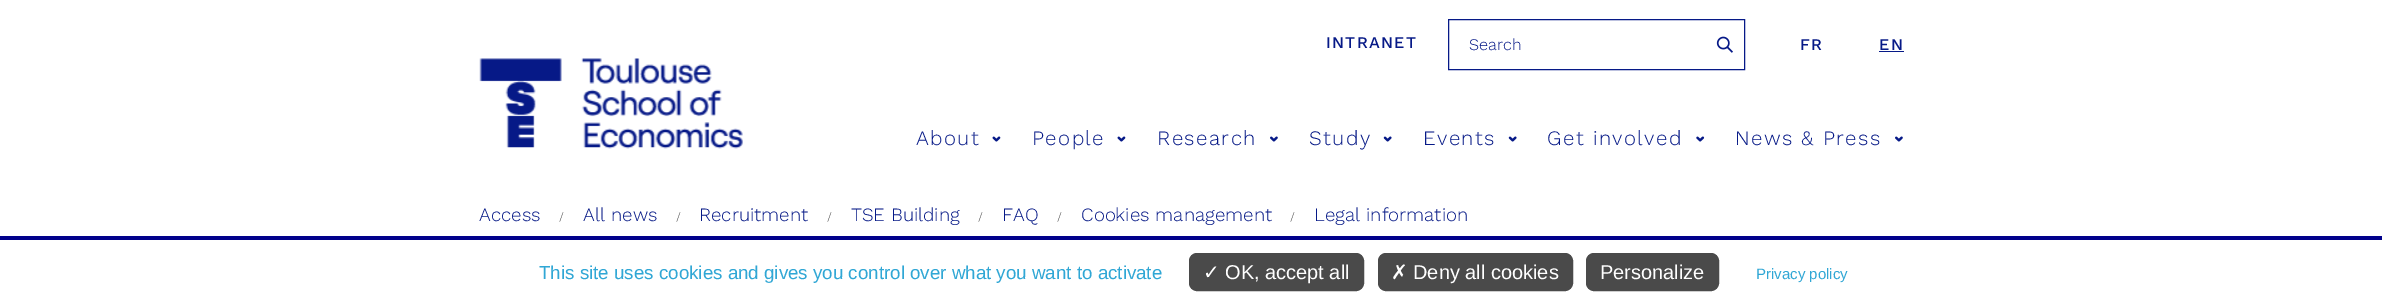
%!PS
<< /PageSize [2382 307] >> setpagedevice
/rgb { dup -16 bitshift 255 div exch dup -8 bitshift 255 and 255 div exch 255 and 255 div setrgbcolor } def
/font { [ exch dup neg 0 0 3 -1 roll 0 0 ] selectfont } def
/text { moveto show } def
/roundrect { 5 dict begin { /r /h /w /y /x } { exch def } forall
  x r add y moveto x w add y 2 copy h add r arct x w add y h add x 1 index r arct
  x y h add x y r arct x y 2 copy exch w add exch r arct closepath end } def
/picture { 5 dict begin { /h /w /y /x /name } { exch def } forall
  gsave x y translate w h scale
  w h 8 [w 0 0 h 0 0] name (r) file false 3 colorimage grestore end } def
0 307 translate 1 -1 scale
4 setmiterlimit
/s1 { /WorkSans-Light 16.25 font 16#061987 rgb } def
/s2 { /WorkSans-Light 18.75 font 16#061987 rgb } def
/s3 { /WorkSans-Light 12 font 16#4A4A4A rgb } def
/s4 { /LiberationSans-Regular 18.75 font 16#30A7D5 rgb } def
/s5 { /DejaVuSans-Regular 20 font 16#FFFFFF rgb } def
/s6 { /LiberationSans-Regular 20 font 16#FFFFFF rgb } def
/s7 { /LiberationSans-Regular 15 font 16#30A7D5 rgb } def
16#FFFFFF rgb
0 0 2382 307 rectfill
/WorkSans-Medium 16.25 font
16#061987 rgb
1326 48 moveto 1.25 0 (INTRANET) ashow
1448.5 19.5 296 50 rectstroke
s1
(Search) 1469 50 text
(pic1.raw) 1716 36 17 17 picture
/WorkSans-Medium 16.25 font
1800 50 moveto 1.25 0 (FR) ashow
1879 50 moveto 1.25 0 (EN) ashow
1879 51 25 1 rectfill
(pic2.raw) 479 58 264 91 picture
/WorkSans-Light 20.5 font
916 145 moveto 1.4 0 (About) ashow
(pic3.raw) 992 136 9 6 picture
1032 145 moveto 1.4 0 (People) ashow
(pic3.raw) 1117 136 9 6 picture
1157 145 moveto 1.4 0 (Research) ashow
(pic4.raw) 1270 136 8 6 picture
1309 145 moveto 1.4 0 (Study) ashow
(pic5.raw) 1383 136 9 6 picture
1423 145 moveto 1.4 0 (Events) ashow
(pic5.raw) 1508 136 9 6 picture
1547 145 moveto 1.4 0 (Get involved) ashow
(pic6.raw) 1696 136 9 6 picture
1735 145 moveto 1.4 0 (News & Press) ashow
(pic4.raw) 1895 136 8 6 picture
s2
(Access) 479 221 text
s3
(/) 559 221 text
s2
(All news) 583 221 text
s3
(/) 676 221 text
s2
(Recruitment) 699 221 text
s3
(/) 827 221 text
s2
(TSE Building) 851 221 text
s3
(/) 978 221 text
s2
(FAQ) 1002 221 text
s3
(/) 1057 221 text
s2
(Cookies management) 1081 221 text
s3
(/) 1290 221 text
s2
(Legal information) 1314 221 text
16#00008B rgb
0 236 2382 4 rectfill
s4
(This site uses cookies and gives you control over what you want to activate) 539 279 text
16#4A4A4A rgb
1189.5 253.5 174 37 7.5 roundrect gsave fill grestore
stroke
s5
(✓) 1203 279 text
s6
(OK, accept all) 1225 279 text
16#4A4A4A rgb
1378.5 253.5 194 37 7.5 roundrect gsave fill grestore
stroke
s5
(✗) 1391 279 text
s6
(Deny all cookies) 1413 279 text
16#4A4A4A rgb
1586.5 253.5 132 37 7.5 roundrect gsave fill grestore
stroke
s6
(Personalize) 1600 279 text
s7
(Privacy policy) 1756 279 text
showpage
